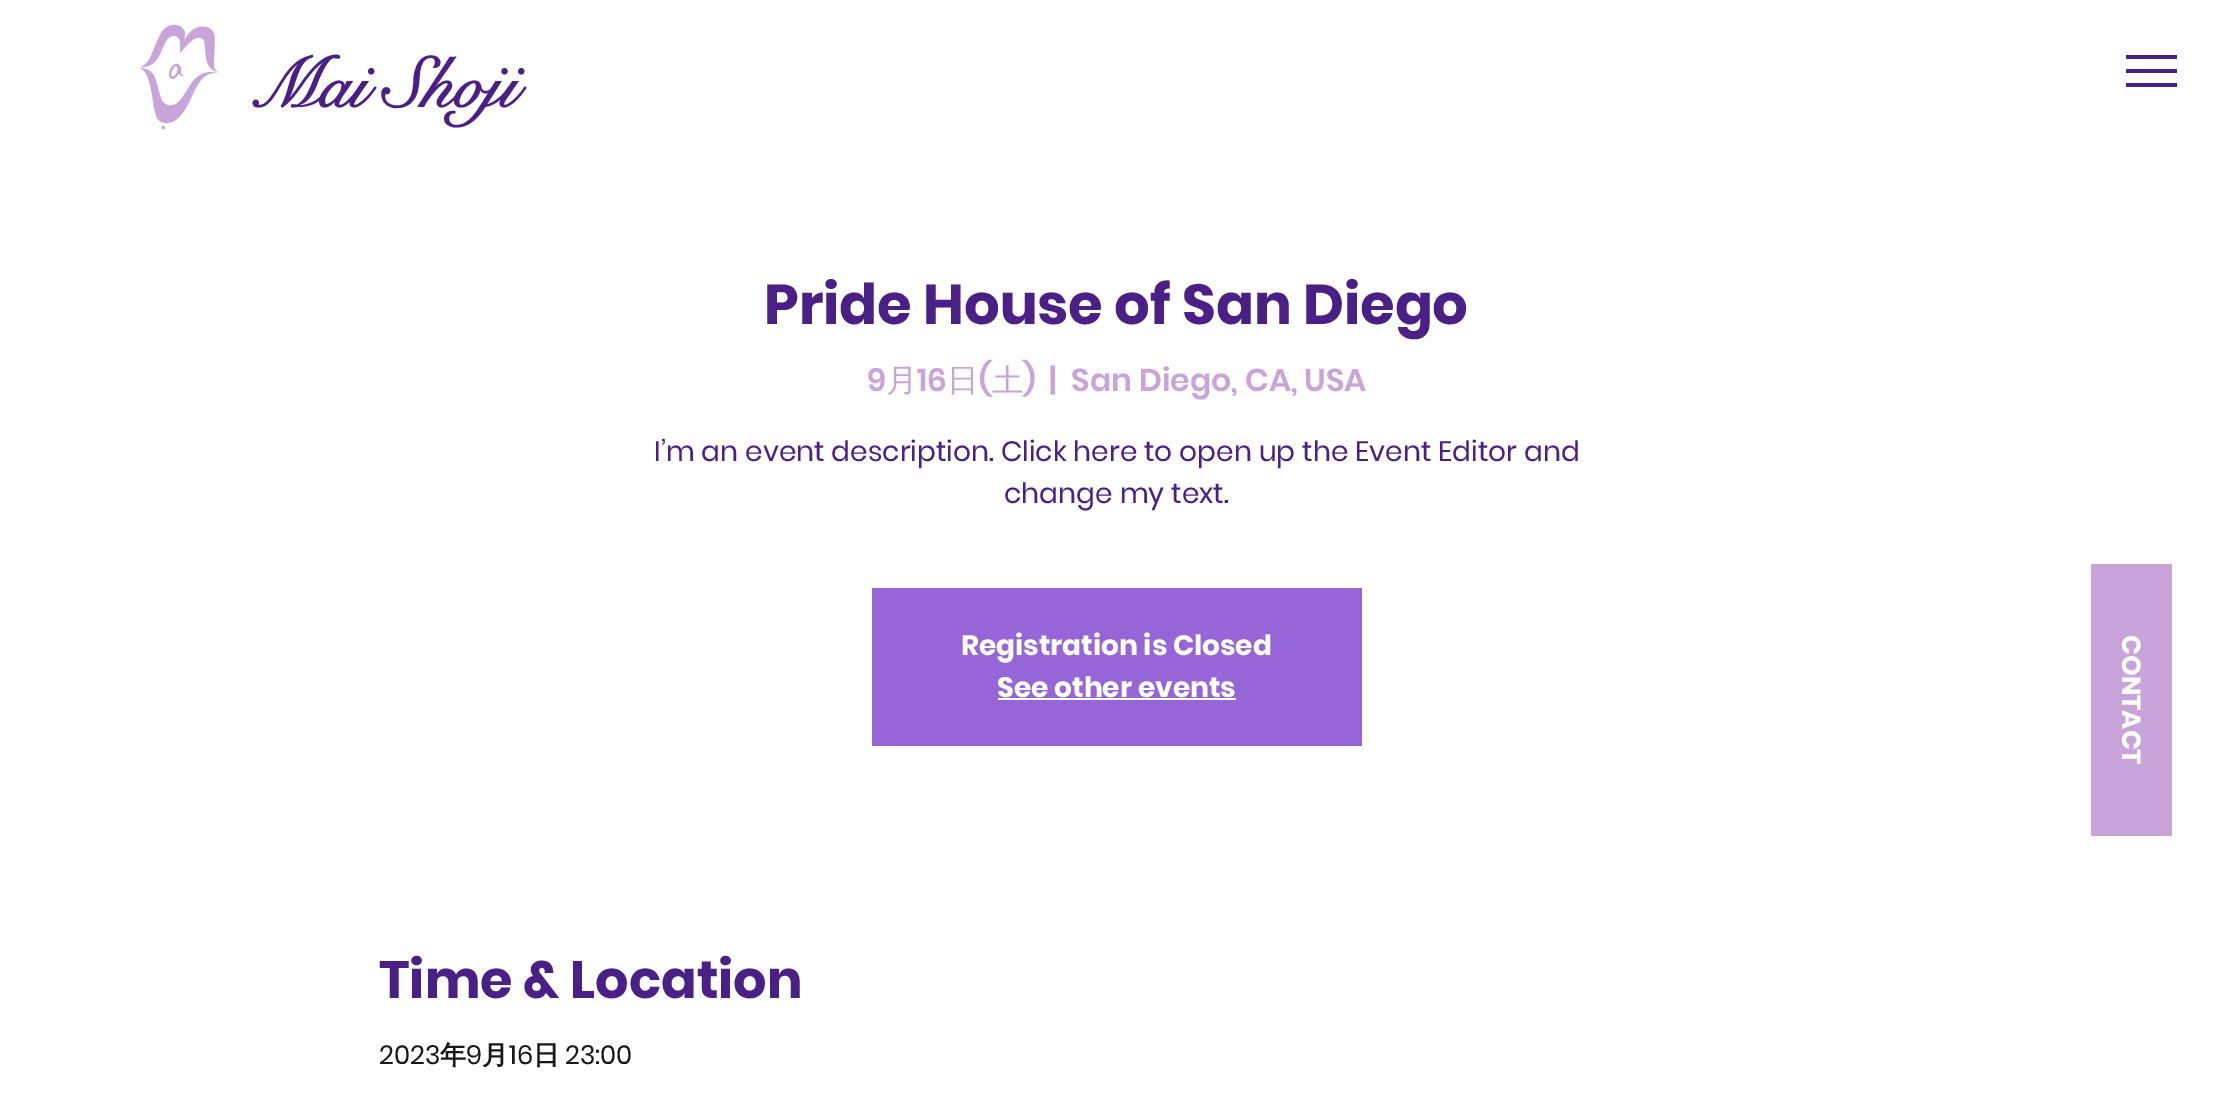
%!PS
<< /PageSize [2232 1095] >> setpagedevice
/rgb { dup -16 bitshift 255 div exch dup -8 bitshift 255 and 255 div exch 255 and 255 div setrgbcolor } def
/font { [ exch dup neg 0 0 3 -1 roll 0 0 ] selectfont } def
/text { moveto show } def
/picture { 5 dict begin { /h /w /y /x /name } { exch def } forall
  gsave x y translate w h scale
  w h 8 [w 0 0 h 0 0] name (r) file false 3 colorimage grestore end } def
0 1095 translate 1 -1 scale
4 setmiterlimit
/s1 { /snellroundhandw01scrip-Bold 70 font 16#4B2086 rgb } def
/s2 { /Poppins-Bold 56 font 16#4B2086 rgb } def
/s3 { /Poppins-SemiBold 31.5 font 16#C9A4DB rgb } def
/s4 { /WenQuanYiZenHei-Medium 31.5 font 16#C9A4DB rgb } def
/s5 { /Poppins-Regular 28 font 16#4B2086 rgb } def
/s6 { /Poppins-Bold 28 font 16#FFFFFF rgb } def
/s7 { /Poppins-Bold 52.5 font 16#4B2086 rgb } def
/s8 { /Poppins-Regular 26.25 font 16#1A1818 rgb } def
/s9 { /WenQuanYiZenHei-Bold 26.25 font 16#1A1818 rgb } def
16#FFFFFF rgb
0 0 2232 1095 rectfill
(pic1.raw) 140 24 79 106 picture
s1
(Mai Shoji) 249 107 text
2126 83 51 4 rectfill
2126 55 51 4 rectfill
2126 69 51 4 rectfill
s2
(Pride House of San Diego) 764 324 text
s3
(9) 867 391 text
s4
(月) 886 391 text
s3
(16) 917 391 text
s4
(日) 947 391 text
s3
(\() 979 391 text
s4
(土) 992 391 text
s3
(\)) 1023 391 text
(|) 1049 391 text
(San Diego, CA, USA) 1071 391 text
s5
(I’m an event description. Click here to open up the Event Editor and) 654 461 text
(change my text.) 1004 503 text
16#9666D9 rgb
872 588 490 158 rectfill
s6
(Registration is Closed) 961 655 text
(See other events) 997 697 text
998 698 238 2 rectfill
s7
(Time & Location) 379 998 text
s8
(2023) 379 1064 text
s9
(年) 440 1064 text
s8
(9) 466 1064 text
s9
(月) 482 1064 text
s8
(16) 509 1064 text
s9
(日) 533 1064 text
s8
(23:00) 565 1064 text
16#C9A4DB rgb
2091 564 81 272 rectfill
/Poppins-Bold 26.25 font
16#FFFFFF rgb
gsave 2122 635 translate 90 rotate 0 0 moveto (CONTACT) show grestore
showpage
